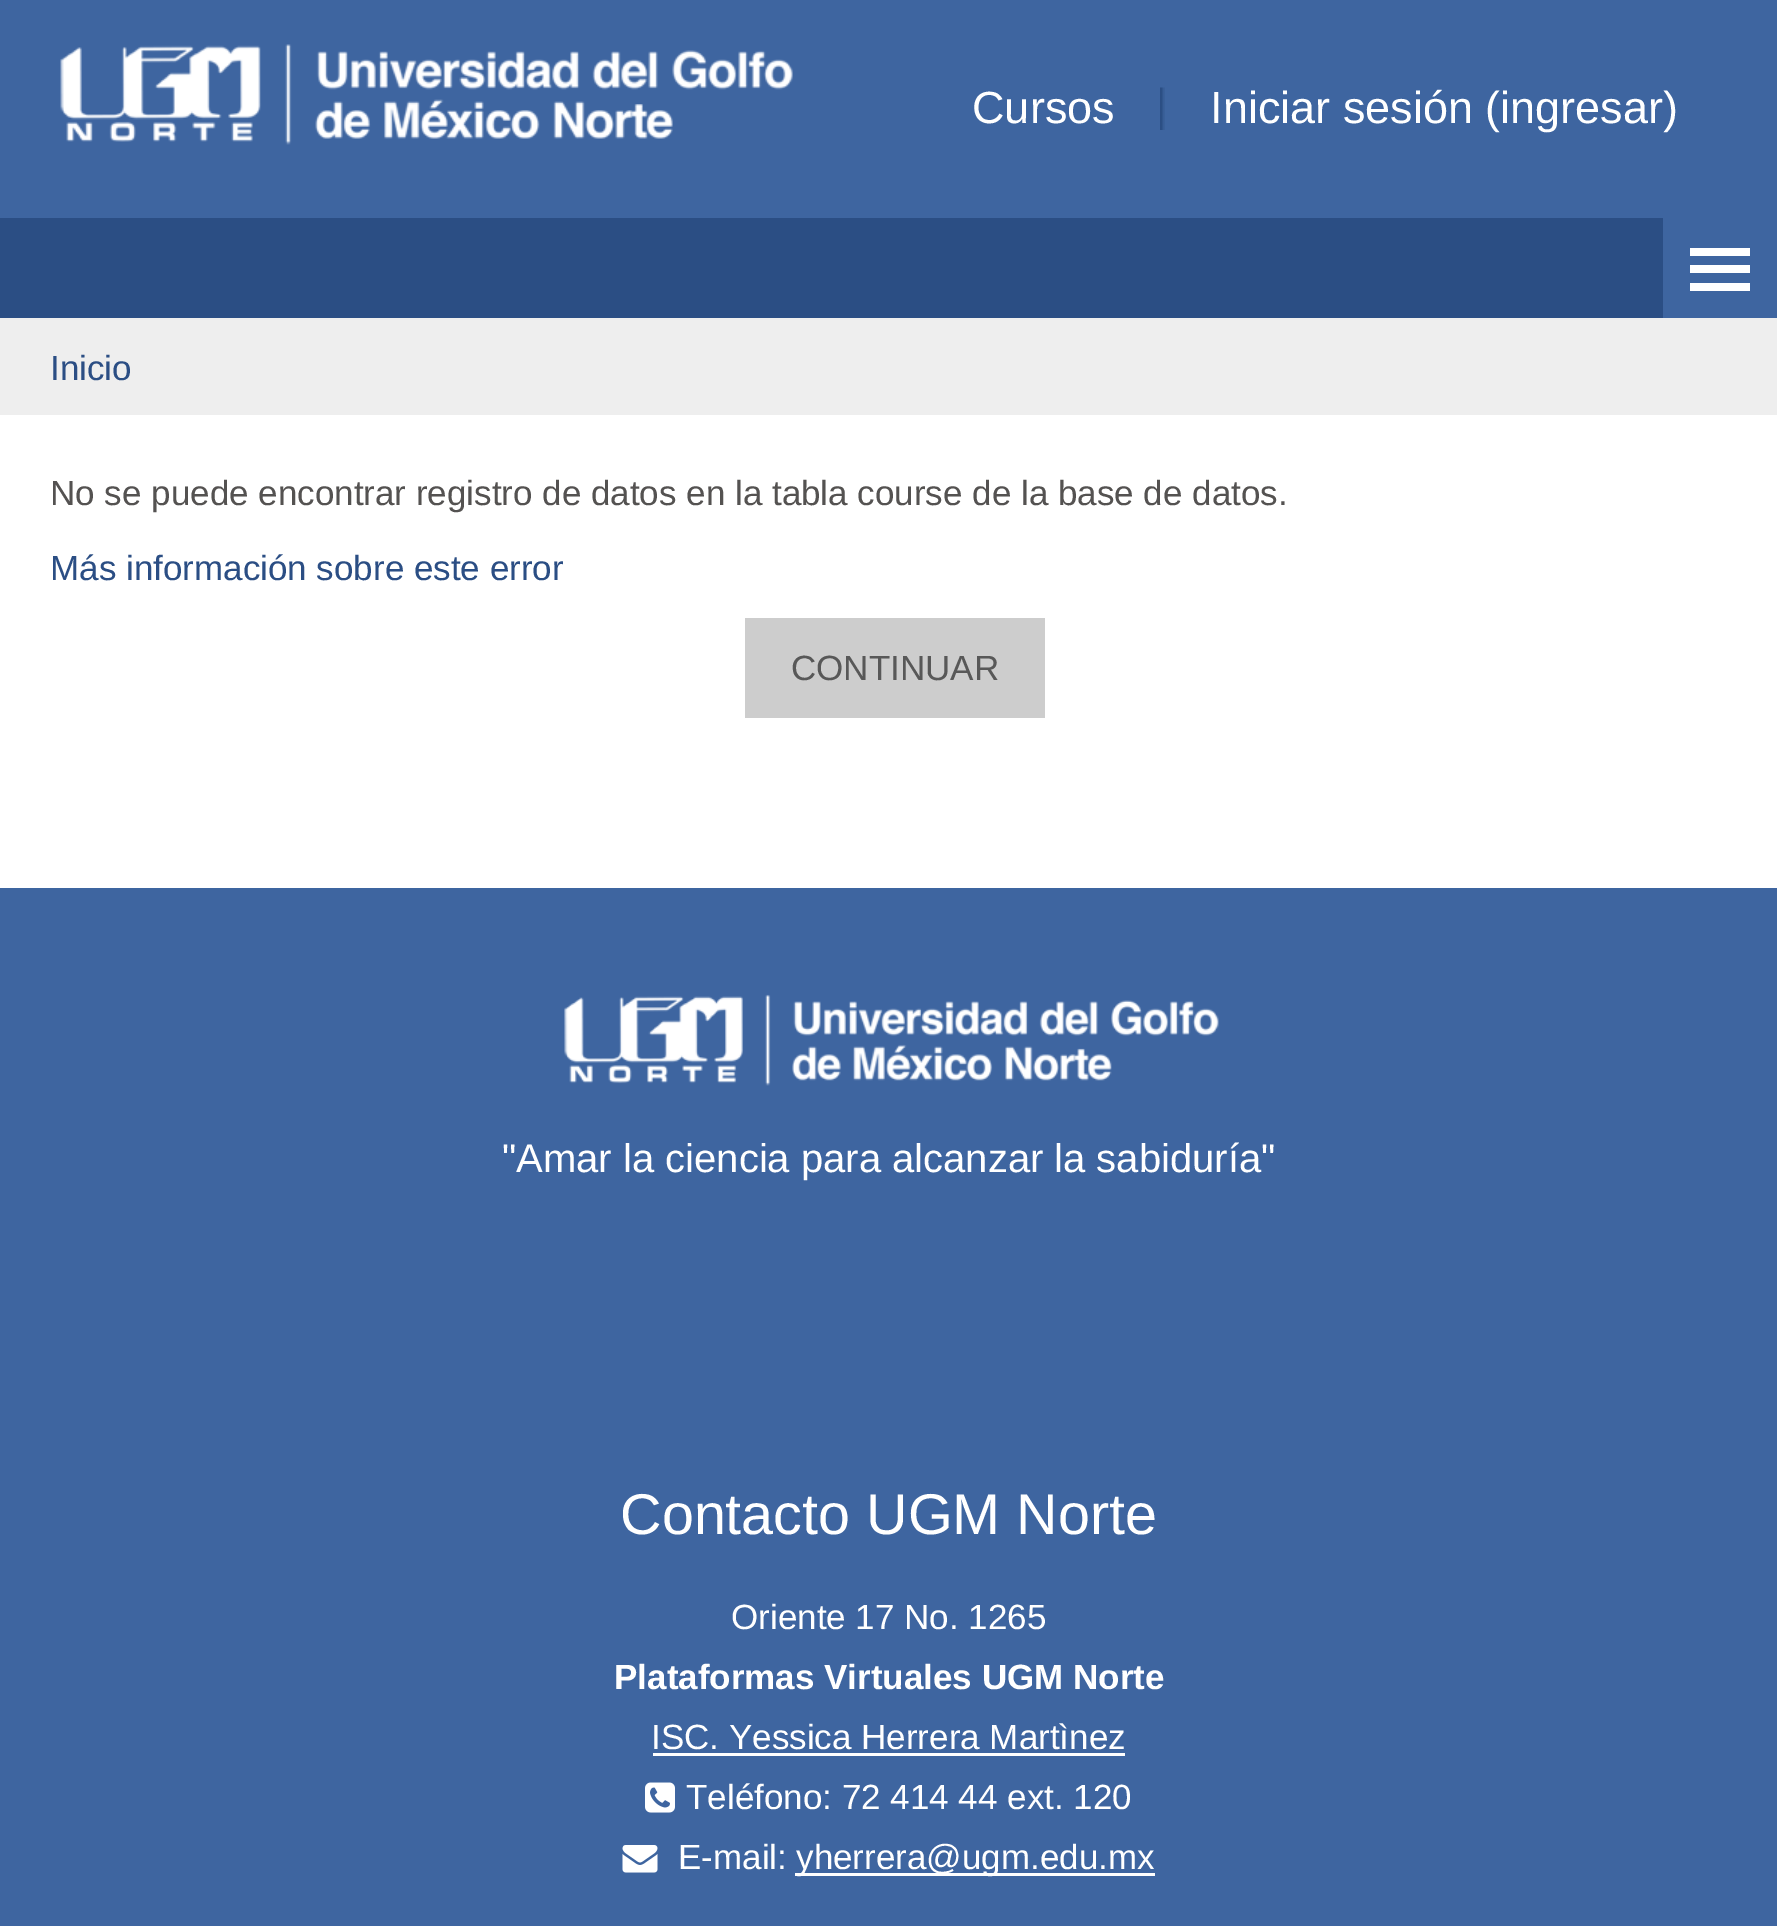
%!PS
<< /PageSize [1777 1926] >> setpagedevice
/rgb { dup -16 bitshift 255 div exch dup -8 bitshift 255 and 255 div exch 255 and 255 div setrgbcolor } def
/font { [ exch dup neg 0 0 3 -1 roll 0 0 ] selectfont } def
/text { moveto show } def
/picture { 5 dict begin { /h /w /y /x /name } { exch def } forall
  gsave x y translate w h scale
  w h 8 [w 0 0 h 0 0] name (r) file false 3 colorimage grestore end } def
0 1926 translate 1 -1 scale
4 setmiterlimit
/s1 { /LiberationSans-Regular 45 font 16#FFFFFF rgb } def
/s2 { /LiberationSans-Regular 35 font 16#2B4E84 rgb } def
/s3 { /LiberationSans-Regular 35 font 16#545251 rgb } def
/s4 { /LiberationSans-Regular 35 font 16#585858 rgb } def
/s5 { /LiberationSans-Regular 40 font 16#FFFFFF rgb } def
/s6 { /LiberationSans-Regular 57.5 font 16#FFFFFF rgb } def
/s7 { /LiberationSans-Regular 35 font 16#FFFFFF rgb } def
/s8 { /LiberationSans-Bold 35 font 16#FFFFFF rgb } def
16#FFFFFF rgb
0 0 1777 1926 rectfill
16#3E65A0 rgb
0 0 1777 218 rectfill
(pic1.raw) 60 44 733 101 picture
(pic2.raw) 1160 87 5 43 picture
s1
(Cursos) 972 123 text
(Iniciar sesión \(ingresar\)) 1210 123 text
16#2B4E84 rgb
0 218 1663 100 rectfill
16#3E65A0 rgb
1663 218 114 100 rectfill
16#FFFFFF rgb
1690 248 60 8 rectfill
1690 265 60 8 rectfill
1690 283 60 8 rectfill
16#EEEEEE rgb
0 318 1777 97 rectfill
s2
(Inicio) 50 380 text
s3
(No se puede encontrar registro de datos en la tabla course de la base de datos.) 50 505 text
s2
(Más información sobre este error) 50 580 text
16#CDCDCD rgb
745 618 300 100 rectfill
s4
(CONTINUAR) 791 680 text
16#3E65A0 rgb
0 888 1777 1038 rectfill
(pic3.raw) 564 994 655 92 picture
s5
("Amar la ciencia para alcanzar la sabiduría") 502 1172 text
s6
(Contacto UGM Norte) 620 1534 text
s7
(Oriente 17 No. 1265) 731 1629 text
s8
(Plataformas Virtuales UGM Norte) 614 1689 text
s7
(ISC. Yessica Herrera Martìnez) 651 1749 text
653 1753 472 3 rectfill
(pic4.raw) 645 1782 30 31 picture
(Teléfono: 72 414 44 ext. 120) 686 1809 text
(pic5.raw) 622 1845 36 28 picture
(E-mail:) 678 1869 text
795 1873 360 3 rectfill
(yherrera@ugm.edu.mx) 796 1869 text
showpage
